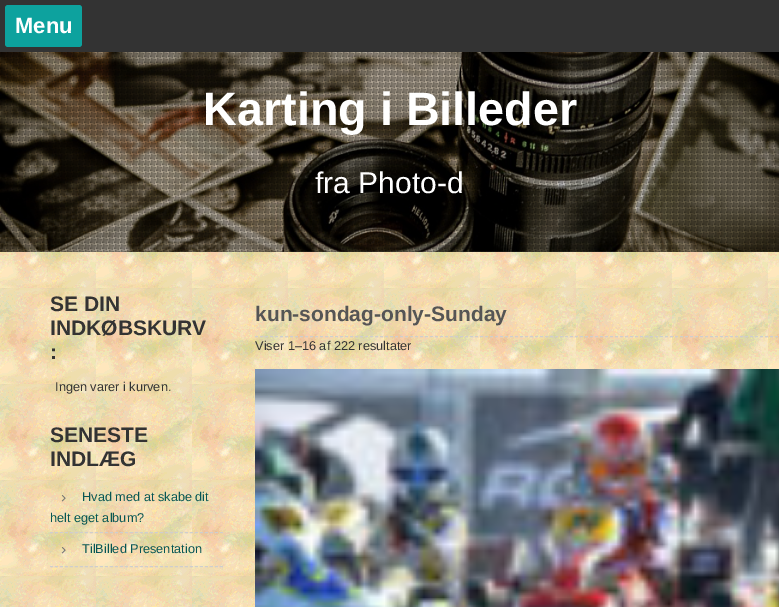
%!PS
<< /PageSize [779 607] >> setpagedevice
/rgb { dup -16 bitshift 255 div exch dup -8 bitshift 255 and 255 div exch 255 and 255 div setrgbcolor } def
/font { [ exch dup neg 0 0 3 -1 roll 0 0 ] selectfont } def
/text { moveto show } def
/roundrect { 5 dict begin { /r /h /w /y /x } { exch def } forall
  x r add y moveto x w add y 2 copy h add r arct x w add y h add x 1 index r arct
  x y h add x y r arct x y 2 copy exch w add exch r arct closepath end } def
/picture { 5 dict begin { /h /w /y /x /name } { exch def } forall
  gsave x y translate w h scale
  w h 8 [w 0 0 h 0 0] name (r) file false 3 colorimage grestore end } def
0 607 translate 1 -1 scale
4 setmiterlimit
/s1 { /LiberationSans-Bold 22 font 16#FFFFFF rgb } def
/s2 { /LiberationSans-Bold 46.75 font 16#FFFFFF rgb } def
/s3 { /LiberationSans-Regular 30 font 16#FFFFFF rgb } def
/s4 { /LiberationSans-Bold 21 font 16#333333 rgb } def
/s5 { /LiberationSans-Regular 12.75 font 16#333333 rgb } def
/s6 { /LiberationSans-Regular 12.75 font 16#075654 rgb } def
/s7 { /LiberationSans-Bold 21 font 16#555555 rgb } def
16#FFFFFF rgb
0 0 779 607 rectfill
(pic1.raw) 0 251 779 356 picture
16#333333 rgb
0 0 779 52 rectfill
16#0DA29E rgb
5 5 77 42 3 roundrect fill
s1
(Menu) 15 33 text
(pic2.raw) 0 52 779 200 picture
(pic3.raw) 0 52 779 200 picture
s2
(Karting i Billeder) 203 125 text
s3
(fra Photo-d) 315 193 text
s4
(SE DIN) 50 311 text
(INDKØBSKURV) 50 335 text
(:) 50 359 text
s5
(Ingen varer i kurven.) 55 391 text
s4
(SENESTE) 50 442 text
(INDLÆG) 50 466 text
16#CECECE rgb
[3 2] 0 setdash
50 532.5 moveto 223 532.5 lineto stroke
(pic4.raw) 61 494 5 8 picture
s6
(Hvad med at skabe dit) 82 501 text
(helt eget album?) 50 522 text
16#CECECE rgb
50 566.5 moveto 223 566.5 lineto stroke
(pic5.raw) 61 546 5 8 picture
s6
(TilBilled Presentation) 82 553 text
16#CECECE rgb
255 336.5 moveto 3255 336.5 lineto stroke
s7
(kun-sondag-only-Sunday) 255 321 text
s5
(Viser 1–16 af 222 resultater) 255 350 text
(pic6.raw) 255 369 524 238 picture
showpage
